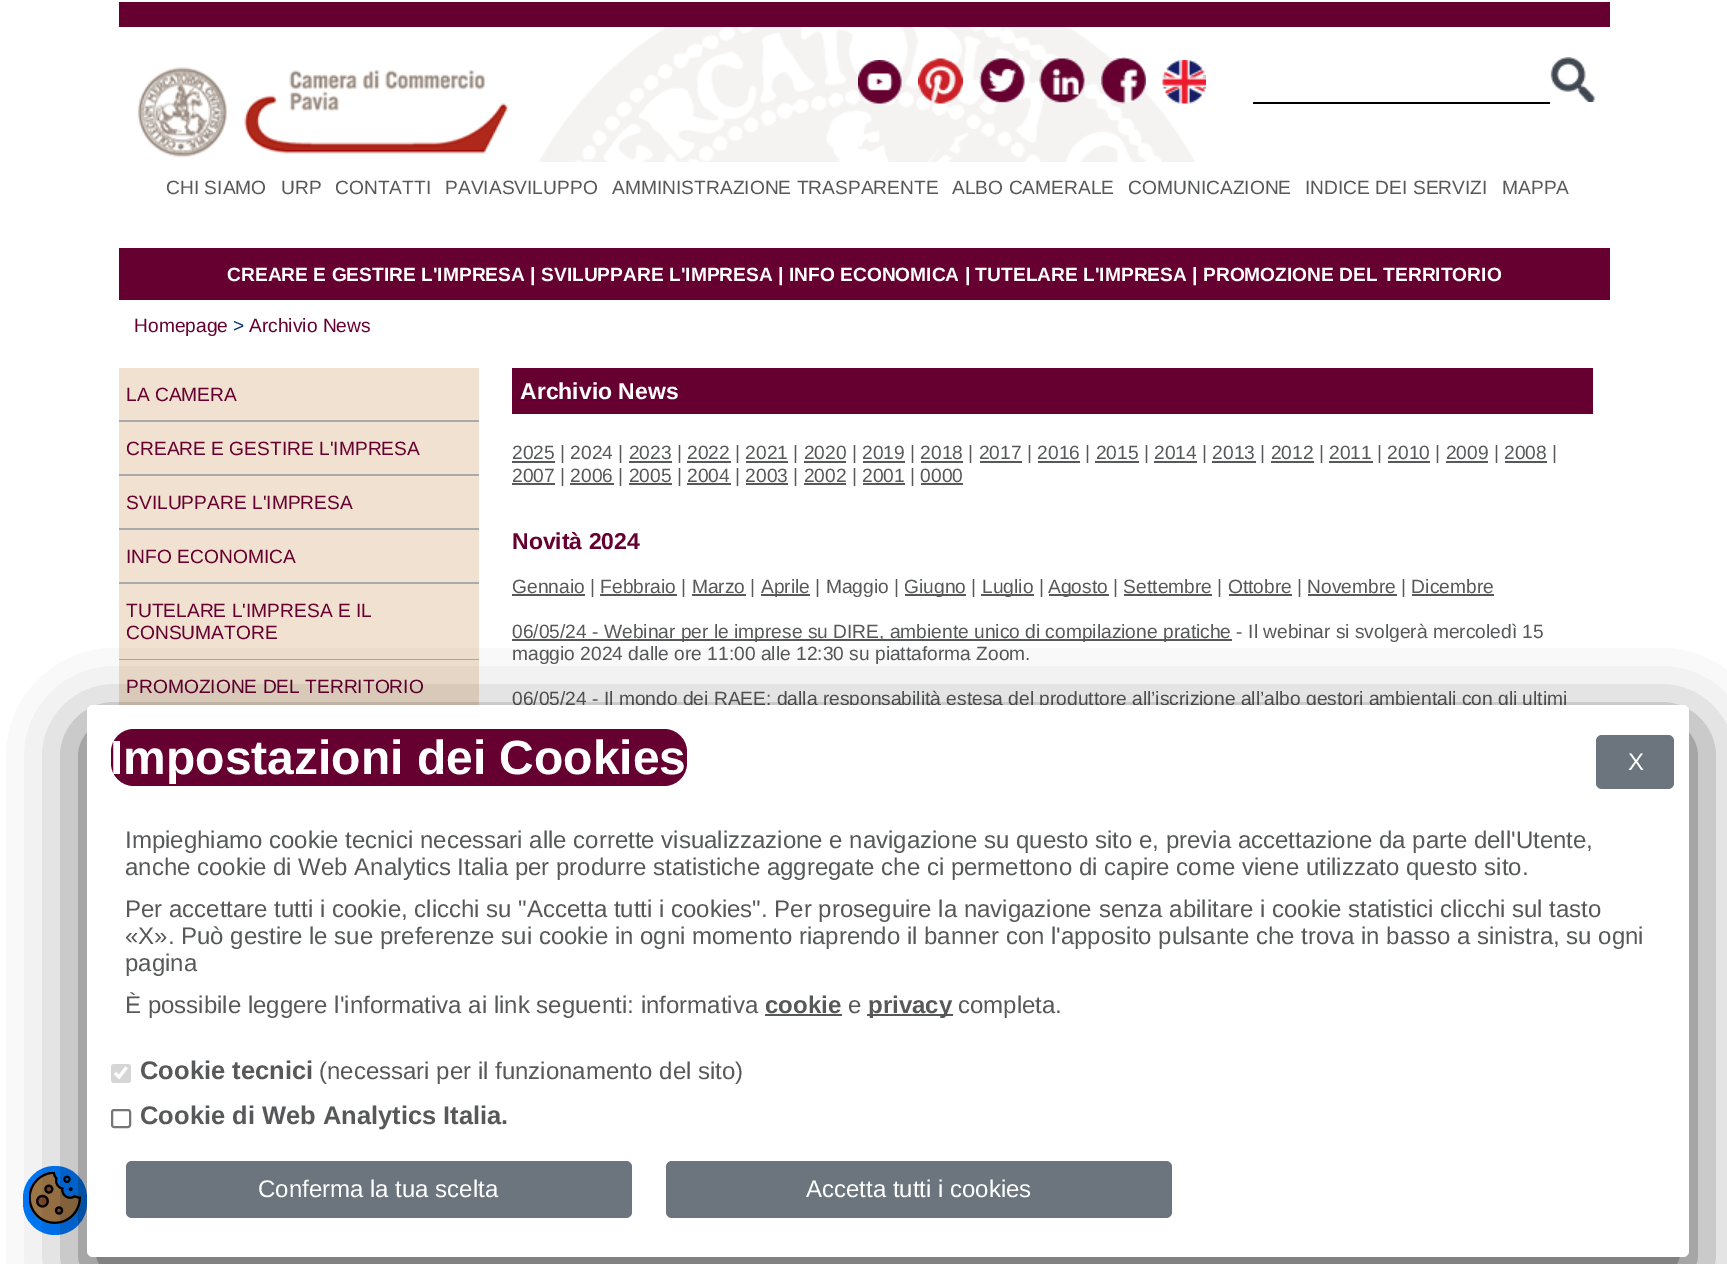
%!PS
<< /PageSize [1727 1264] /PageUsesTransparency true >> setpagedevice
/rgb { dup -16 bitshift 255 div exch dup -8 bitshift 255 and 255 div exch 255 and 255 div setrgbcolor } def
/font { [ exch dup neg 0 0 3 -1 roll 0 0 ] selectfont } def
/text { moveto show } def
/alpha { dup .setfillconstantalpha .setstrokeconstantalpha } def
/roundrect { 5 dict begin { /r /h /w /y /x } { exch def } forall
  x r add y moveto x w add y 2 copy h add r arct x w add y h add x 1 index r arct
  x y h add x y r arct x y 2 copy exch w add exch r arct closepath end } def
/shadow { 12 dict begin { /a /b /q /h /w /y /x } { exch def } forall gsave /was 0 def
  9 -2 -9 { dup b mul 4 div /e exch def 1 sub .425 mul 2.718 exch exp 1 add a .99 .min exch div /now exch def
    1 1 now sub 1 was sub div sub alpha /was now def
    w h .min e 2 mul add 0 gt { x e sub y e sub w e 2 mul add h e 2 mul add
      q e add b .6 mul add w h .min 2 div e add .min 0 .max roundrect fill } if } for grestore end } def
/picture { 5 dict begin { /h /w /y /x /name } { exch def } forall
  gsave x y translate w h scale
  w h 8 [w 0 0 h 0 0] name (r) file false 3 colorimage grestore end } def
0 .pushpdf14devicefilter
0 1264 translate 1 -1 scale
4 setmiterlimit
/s1 { /LiberationSans-Regular 19.2 font 16#575859 rgb } def
/s2 { /LiberationSans-Bold 19.2 font 16#FFFFFF rgb } def
/s3 { /LiberationSans-Regular 19.2 font 16#650031 rgb } def
/s4 { /LiberationSans-Regular 19.2 font 16#02326C rgb } def
/s5 { /LiberationSans-Bold 23 font 16#FFFFFF rgb } def
/s6 { /LiberationSans-Bold 23 font 16#650031 rgb } def
/s7 { /LiberationSans-Bold 48 font 16#FFFFFF rgb } def
/s8 { /LiberationSans-Regular 24 font 16#FFFFFF rgb } def
/s9 { /LiberationSans-Regular 24 font 16#575859 rgb } def
/s10 { /LiberationSans-Bold 24 font 16#575859 rgb } def
/s11 { /LiberationSans-Bold 25.5 font 16#575859 rgb } def
16#FFFFFF rgb
0 0 1727 1264 rectfill
16#650031 rgb
119 2 1491 25 rectfill
(pic1.raw) 137 27 1058 135 picture
(pic2.raw) 858 60 44 44 picture
(pic3.raw) 918 58 45 46 picture
(pic4.raw) 979 58 46 45 picture
(pic5.raw) 1039 58 46 45 picture
(pic6.raw) 1101 57 45 47 picture
(pic7.raw) 1162 60 44 44 picture
(pic8.raw) 1550 57 45 45 picture
16#000000 rgb
1253 102 297 2 rectfill
s1
(CHI SIAMO) 166 194 text
(URP) 281 194 text
(CONTATTI) 335 194 text
(PAVIASVILUPPO) 445 194 text
(AMMINISTRAZIONE TRASPARENTE) 612 194 text
(ALBO CAMERALE) 952 194 text
(COMUNICAZIONE) 1128 194 text
(INDICE DEI SERVIZI) 1305 194 text
(MAPPA) 1502 194 text
16#650031 rgb
119 248 1491 52 rectfill
s2
(CREARE E GESTIRE L'IMPRESA | SVILUPPARE L'IMPRESA | INFO ECONOMICA | TUTELARE L'IMPRESA | PROMOZIONE DEL TERRITORIO) 227 281 text
s3
(Homepage) 134 332 text
s4
(>) 233 332 text
s3
(Archivio News) 249 332 text
16#F1E1D0 rgb
119 368 360 52 rectfill
16#AAAAAA rgb
119 420 360 2 rectfill
s3
(LA CAMERA) 126 401 text
16#F1E1D0 rgb
119 422 360 52 rectfill
16#AAAAAA rgb
119 474 360 2 rectfill
s3
(CREARE E GESTIRE L'IMPRESA) 126 455 text
16#F1E1D0 rgb
119 476 360 52 rectfill
16#AAAAAA rgb
119 528 360 2 rectfill
s3
(SVILUPPARE L'IMPRESA) 126 509 text
16#F1E1D0 rgb
119 530 360 52 rectfill
16#AAAAAA rgb
119 582 360 2 rectfill
s3
(INFO ECONOMICA) 126 563 text
16#F1E1D0 rgb
119 584 360 75 rectfill
16#AAAAAA rgb
119 659 360 1 rectfill
s3
(TUTELARE L'IMPRESA E IL) 126 617 text
(CONSUMATORE) 126 639 text
16#F1E1D0 rgb
119 660 360 45 rectfill
s3
(PROMOZIONE DEL TERRITORIO) 126 693 text
512 368 1081 46 rectfill
s5
(Archivio News) 520 399 text
16#575859 rgb
512 461 43 2 rectfill
s1
(2025 | 2024 | 2023 | 2022 | 2021 | 2020 | 2019 | 2018 | 2017 | 2016 | 2015 | 2014 | 2013 | 2012 | 2011 | 2010 | 2009 | 2008 |) 512 459 text
629 461 43 2 rectfill
687 461 44 2 rectfill
746 461 42 2 rectfill
804 461 42 2 rectfill
863 461 42 2 rectfill
921 461 42 2 rectfill
980 461 42 2 rectfill
1038 461 42 2 rectfill
1095 461 44 2 rectfill
1154 461 43 2 rectfill
1212 461 44 2 rectfill
1271 461 43 2 rectfill
1329 461 44 2 rectfill
1388 461 42 2 rectfill
1446 461 42 2 rectfill
1505 461 42 2 rectfill
512 483 43 2 rectfill
(2007 | 2006 | 2005 | 2004 | 2003 | 2002 | 2001 | 0000) 512 482 text
570 483 44 2 rectfill
629 483 43 2 rectfill
687 483 44 2 rectfill
746 483 42 2 rectfill
804 483 42 2 rectfill
863 483 42 2 rectfill
921 483 42 2 rectfill
s6
(Novità 2024) 512 549 text
16#575859 rgb
512 594 73 2 rectfill
s1
(Gennaio | Febbraio | Marzo |) 512 593 text
761 594 49 2 rectfill
(Aprile | Maggio |) 761 593 text
905 594 61 2 rectfill
(Giugno |) 904 593 text
981 594 53 2 rectfill
(Luglio |) 982 593 text
1049 594 60 2 rectfill
(Agosto | Settembre | Ottobre | Novembre | Dicembre) 1048 593 text
600 594 77 2 rectfill
692 594 54 2 rectfill
1124 594 88 2 rectfill
1229 594 63 2 rectfill
1308 594 89 2 rectfill
1412 594 82 2 rectfill
512 639 720 2 rectfill
(06/05/24 - Webinar per le imprese su DIRE, ambiente unico di compilazione pratiche - Il webinar si svolgerà mercoledì 15) 512 638 text
(maggio 2024 dalle ore 11:00 alle 12:30 su piattaforma Zoom.) 512 660 text
(06/05/24 - Il mondo dei RAEE: dalla responsabilità estesa del produttore all’iscrizione all’albo gestori ambientali con gli ultimi) 512 705 text
16#007BFF rgb
23 1166 64 69 32 roundrect fill
(pic9.raw) 29 1172 52 52 picture
16#000000 rgb
87 729 1602 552 6 36 0.7 shadow
16#FFFFFF rgb
87 705 1602 552 6 roundrect fill
16#650031 rgb
111 729 576 57 23 roundrect fill
s7
(Impostazioni dei Cookies) 110 774 text
16#6C757D rgb
1596 735 78 54 6 roundrect fill
s8
(X) 1628 770 text
s9
(Impieghiamo cookie tecnici necessari alle corrette visualizzazione e navigazione su questo sito e, previa accettazione da parte dell'Utente,) 125 848 text
(anche cookie di Web Analytics Italia per produrre statistiche aggregate che ci permettono di capire come viene utilizzato questo sito.) 125 875 text
(Per accettare tutti i cookie, clicchi su "Accetta tutti i cookies". Per proseguire la navigazione senza abilitare i cookie statistici clicchi sul tasto) 125 917 text
(«X». Può gestire le sue preferenze sui cookie in ogni momento riaprendo il banner con l'apposito pulsante che trova in basso a sinistra, su ogni) 125 944 text
(pagina) 125 971 text
(È possibile leggere l'informativa ai link seguenti: informativa) 125 1013 text
s10
(cookie) 765 1013 text
765 1014 77 2 rectfill
s9
(e) 848 1013 text
867 1014 86 2 rectfill
s10
(privacy) 868 1013 text
s9
(completa.) 958 1013 text
16#D6D6D6 rgb
111 1064 20 19 3 roundrect fill
16#FFFFFF rgb
3.1 setlinewidth
115 1073 moveto 119 1077 lineto 126.5 1067.5 lineto stroke
s11
(Cookie tecnici) 140 1079 text
s9
(\(necessari per il funzionamento del sito\)) 319 1079 text
16#767676 rgb
2 setlinewidth
112 1110 18 17 2 roundrect stroke
s11
(Cookie di Web Analytics Italia.) 140 1124 text
16#6C757D rgb
126 1161 506 57 6 roundrect fill
s8
(Conferma la tua scelta) 258 1197 text
16#6C757D rgb
666 1161 506 57 6 roundrect fill
s8
(Accetta tutti i cookies) 806 1197 text
.poppdf14devicefilter showpage
